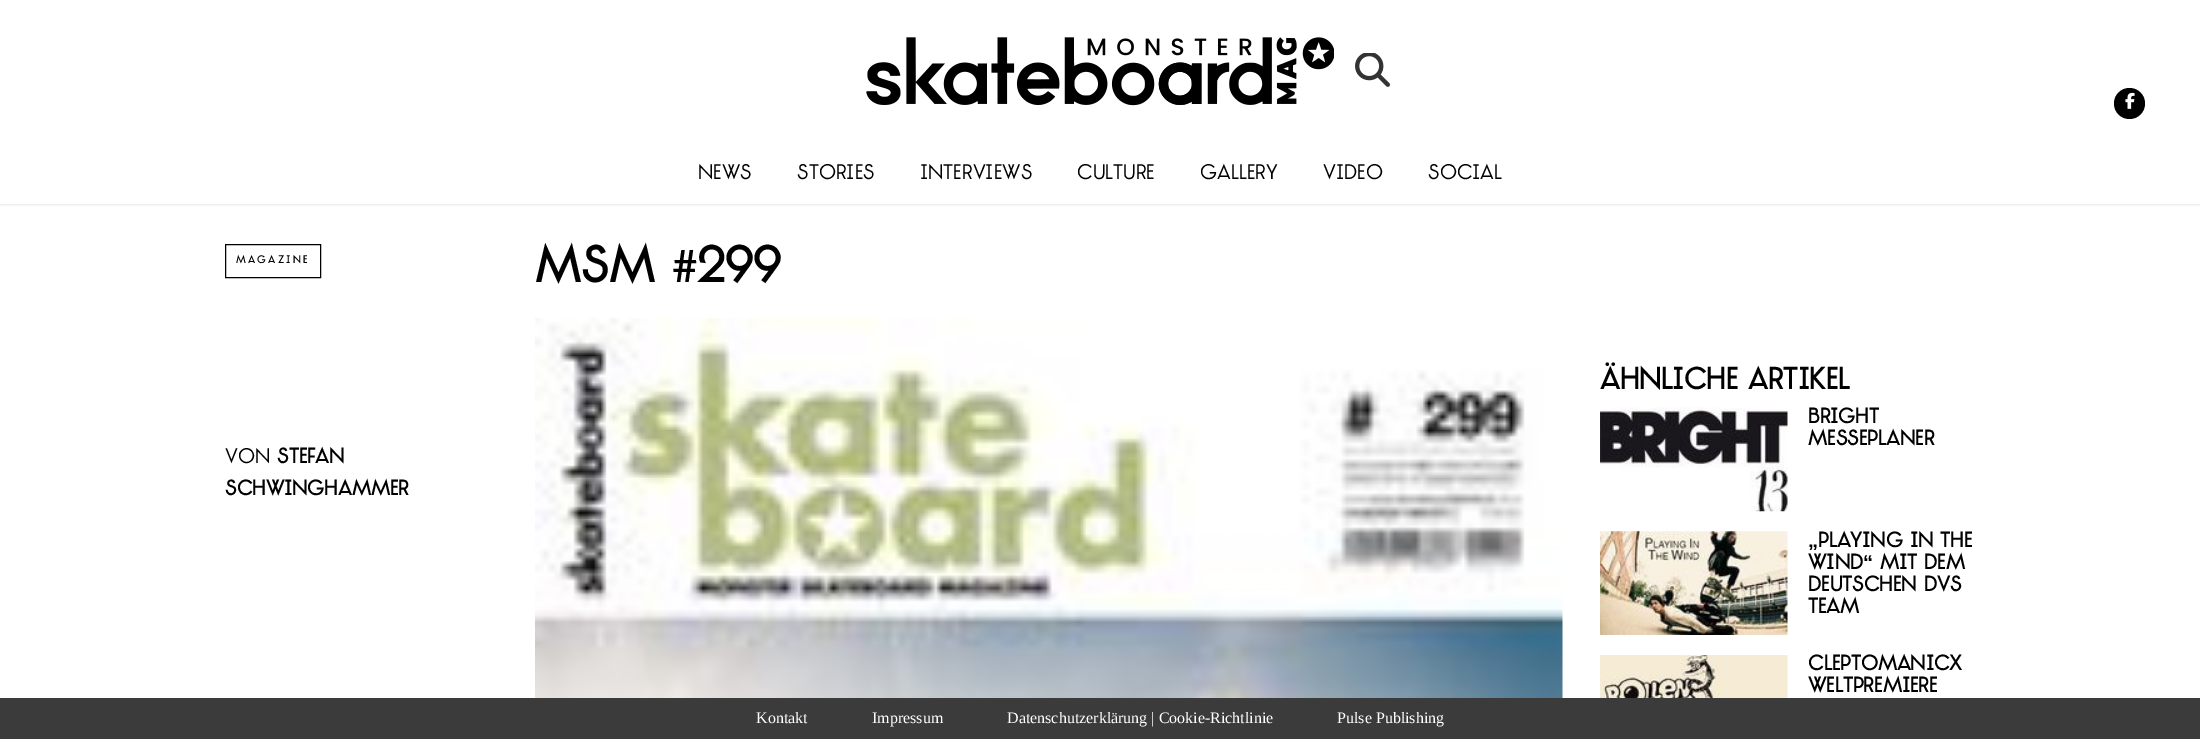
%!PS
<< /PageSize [2200 739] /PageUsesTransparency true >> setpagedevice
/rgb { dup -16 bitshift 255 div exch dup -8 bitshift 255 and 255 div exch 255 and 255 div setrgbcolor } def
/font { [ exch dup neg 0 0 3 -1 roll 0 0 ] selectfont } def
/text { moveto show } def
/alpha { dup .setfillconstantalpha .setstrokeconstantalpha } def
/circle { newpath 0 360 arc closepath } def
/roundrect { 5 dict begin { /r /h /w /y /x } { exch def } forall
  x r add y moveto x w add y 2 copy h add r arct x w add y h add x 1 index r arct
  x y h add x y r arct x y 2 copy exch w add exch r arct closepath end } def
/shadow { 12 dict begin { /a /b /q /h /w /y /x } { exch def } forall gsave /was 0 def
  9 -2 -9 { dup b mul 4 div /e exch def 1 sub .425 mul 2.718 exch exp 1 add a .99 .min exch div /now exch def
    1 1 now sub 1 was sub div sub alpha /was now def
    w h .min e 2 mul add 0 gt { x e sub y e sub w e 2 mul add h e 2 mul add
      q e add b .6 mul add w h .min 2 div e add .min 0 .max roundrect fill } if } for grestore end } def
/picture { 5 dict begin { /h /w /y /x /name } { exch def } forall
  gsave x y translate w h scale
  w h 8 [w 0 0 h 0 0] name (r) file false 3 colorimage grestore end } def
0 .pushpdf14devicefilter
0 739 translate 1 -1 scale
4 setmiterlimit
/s1 { /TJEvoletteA-Regular 20 font 16#000000 rgb } def
/s2 { /TJEvoletteA-Bold 48 font 16#000000 rgb } def
/s3 { /TJEvoletteA-Bold 20 font 16#000000 rgb } def
/s4 { /TJEvoletteA-Bold 28.75 font 16#000000 rgb } def
/s5 { /LiberationSans-Bold 20 font 16#000000 rgb } def
/s6 { /LiberationSerif-Regular 16 font 16#FFFFFF rgb } def
16#FFFFFF rgb
0 0 2200 739 rectfill
16#000000 rgb
0 1 2200 204 0 1 0.1 shadow
16#FFFFFF rgb
0 0 2200 204 rectfill
(pic1.raw) 866 37 468 69 picture
(pic2.raw) 1355 53 35 34 picture
16#000000 rgb
2129.5 103.5 15.5 circle fill
(pic3.raw) 2125 92 10 17 picture
s1
(News) 698 179 text
(Stories) 797 179 text
(Interviews) 920 179 text
(Culture) 1077 179 text
(Gallery) 1200 179 text
(Video) 1323 179 text
(Social) 1428 179 text
225.5 244.5 95 33 rectstroke
/TJEvoletteA-Bold 10 font
236 263 moveto 2.5 0 (MAGAZINE) ashow
s2
(MSM #299) 535 282 text
s1
(von) 225 463 text
s3
(Stefan) 277 463 text
(Schwinghammer) 225 495 text
(pic4.raw) 535 317 1028 381 picture
s4
(Ähnliche Artikel) 1600 389 text
(pic5.raw) 1600 407 188 105 picture
s3
(Bright) 1808 423 text
(Messeplaner) 1808 445 text
(pic6.raw) 1600 531 188 104 picture
s5
(„) 1808 547 text
s3
(Playing in the) 1818 547 text
(Wind) 1808 569 text
s5
(“) 1863 569 text
s3
(mit dem) 1880 569 text
(deutschen DVS) 1808 591 text
(Team) 1808 613 text
(pic7.raw) 1600 655 188 43 picture
(Cleptomanicx) 1808 670 text
(Weltpremiere) 1808 692 text
16#3B3B3B rgb
0 698 2200 41 rectfill
s6
(Kontakt) 756 723 text
(Impressum) 872 723 text
(Datenschutzerklärung | Cookie-Richtlinie) 1007 723 text
(Pulse Publishing) 1337 723 text
.poppdf14devicefilter showpage
